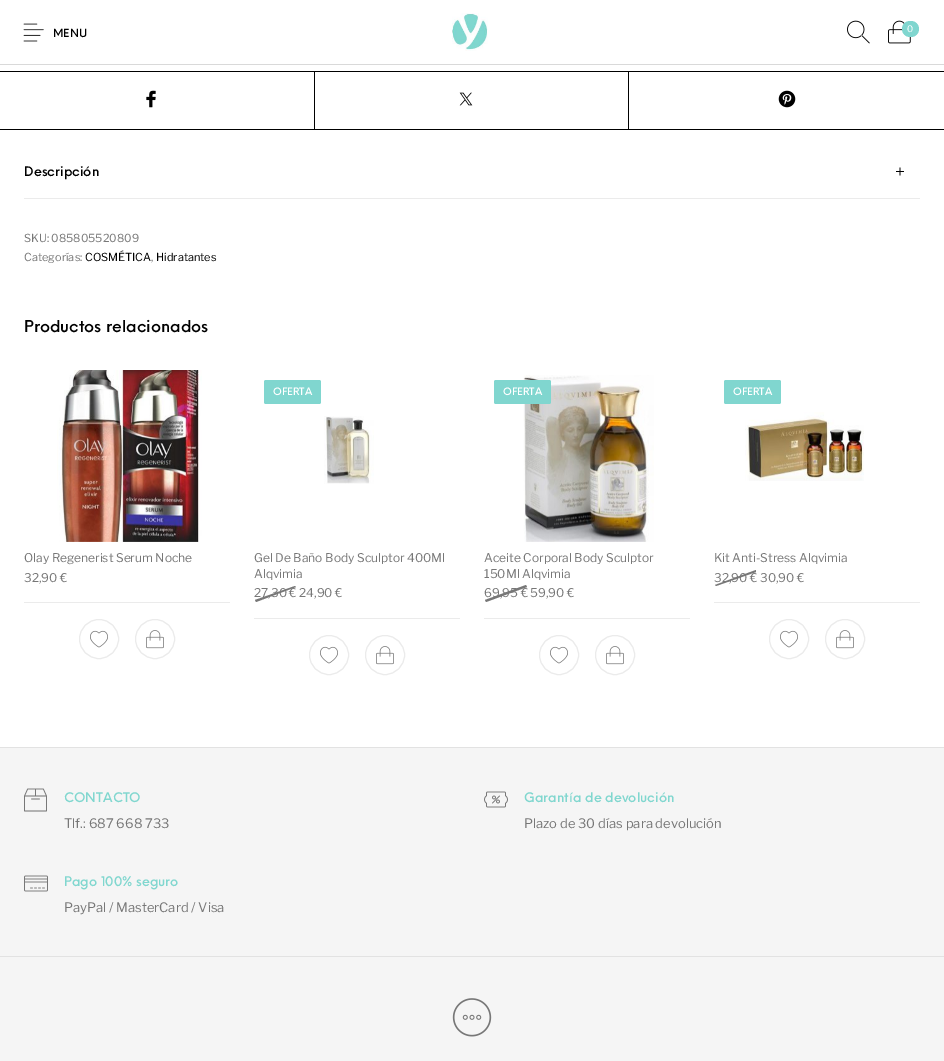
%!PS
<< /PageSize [944 1061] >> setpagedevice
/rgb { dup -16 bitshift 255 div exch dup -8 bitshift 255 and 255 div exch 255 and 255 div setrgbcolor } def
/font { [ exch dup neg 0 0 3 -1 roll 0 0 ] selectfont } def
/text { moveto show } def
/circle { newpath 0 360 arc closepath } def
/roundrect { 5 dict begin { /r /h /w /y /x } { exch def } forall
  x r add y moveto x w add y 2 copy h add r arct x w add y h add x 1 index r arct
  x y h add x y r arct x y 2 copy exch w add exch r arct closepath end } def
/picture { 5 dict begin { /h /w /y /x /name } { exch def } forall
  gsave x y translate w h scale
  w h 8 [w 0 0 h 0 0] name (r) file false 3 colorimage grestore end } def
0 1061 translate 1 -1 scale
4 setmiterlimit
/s1 { /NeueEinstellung-Medium 11 font 16#000000 rgb } def
/s2 { /LibreFranklin-Regular 9 font 16#FFFFFF rgb } def
/s3 { /NeueEinstellung-Medium 13 font 16#000000 rgb } def
/s4 { /LibreFranklin-Regular 11 font 16#777777 rgb } def
/s5 { /LibreFranklin-Regular 11 font 16#000000 rgb } def
/s6 { /NeueEinstellung-Medium 16 font 16#000000 rgb } def
/s7 { /LibreFranklin-Regular 12 font 16#777777 rgb } def
/s8 { /NeueEinstellung-Medium 10 font 16#FFFFFF rgb } def
/s9 { /NeueEinstellung-Medium 13 font 16#80D7CF rgb } def
/s10 { /LibreFranklin-Regular 13 font 16#777777 rgb } def
16#FFFFFF rgb
0 0 944 1061 rectfill
16#D9D9D9 rgb
0 64 944 1 rectfill
(pic1.raw) 23 23 21 19 picture
s1
(MENU) 53 37 text
(pic2.raw) 452 13 36 38 picture
(pic3.raw) 847 20 23 24 picture
(pic4.raw) 888 20 23 24 picture
16#80D6CF rgb
902 21 17 16 8 roundrect fill
s2
(0) 907 32 text
16#000000 rgb
0 71 944 1 rectfill
314 71 1 59 rectfill
0 129 315 1 rectfill
(pic5.raw) 146 90 10 18 picture
628 71 1 59 rectfill
315 129 629 1 rectfill
(pic6.raw) 459 92 14 14 picture
(pic7.raw) 778 90 18 18 picture
16#EBEBEB rgb
24 198 896 1 rectfill
s3
(Descripción) 24 176 text
(pic8.raw) 896 167 8 9 picture
s4
(SKU: 085805520809) 24 242 text
(Categorías:) 24 261 text
s5
(COSMÉTICA) 85 261 text
s4
(,) 151 261 text
s5
(Hidratantes) 156 261 text
s6
(Productos relacionados) 24 332 text
(pic9.raw) 57 370 145 172 picture
16#EBEBEB rgb
24 602 206 1 rectfill
s7
(Olay Regenerist Serum Noche) 24 562 text
(32,90 €) 24 582 text
16#EBEBEB rgb
99 639 19.5 circle stroke
(pic10.raw) 90 630 18 18 picture
155 639 19.5 circle stroke
(pic11.raw) 146 630 18 19 picture
16#80D6CF rgb
264 380 57 24 2 roundrect fill
s8
(OFERTA) 273 395 text
(pic12.raw) 324 416 50 68 picture
16#EBEBEB rgb
254 618 206 1 rectfill
s7
(Gel De Baño Body Sculptor 400Ml) 254 562 text
(Alqvimia) 254 578 text
255 600 moveto 295 586 lineto 296 587 lineto 256 602 lineto closepath fill
(27,30 €) 254 597 text
(24,90 €) 299 597 text
16#EBEBEB rgb
329 655 19.5 circle stroke
(pic10.raw) 320 646 18 18 picture
385 655 19.5 circle stroke
(pic11.raw) 376 646 18 19 picture
(pic13.raw) 523 375 131 167 picture
16#80D6CF rgb
494 380 57 24 2 roundrect fill
s8
(OFERTA) 503 395 text
16#EBEBEB rgb
484 618 206 1 rectfill
s7
(Aceite Corporal Body Sculptor) 484 562 text
(150Ml Alqvimia) 484 578 text
485 600 moveto 526 585 lineto 527 587 lineto 486 602 lineto closepath fill
(69,95 €) 484 597 text
(59,90 €) 530 597 text
16#EBEBEB rgb
559 655 19.5 circle stroke
(pic10.raw) 550 646 18 18 picture
615 655 19.5 circle stroke
(pic11.raw) 606 646 18 19 picture
16#80D6CF rgb
724 380 57 24 2 roundrect fill
s8
(OFERTA) 733 395 text
(pic14.raw) 745 412 119 69 picture
16#EBEBEB rgb
714 602 206 1 rectfill
s7
(Kit Anti-Stress Alqvimia) 714 562 text
715 585 moveto 756 570 lineto 756 572 lineto 716 586 lineto closepath fill
(32,90 €) 714 582 text
(30,90 €) 760 582 text
16#EBEBEB rgb
789 639 19.5 circle stroke
(pic10.raw) 780 630 18 18 picture
845 639 19.5 circle stroke
(pic11.raw) 836 630 18 19 picture
16#F5F5F5 rgb
0 748 944 208 rectfill
16#E2E2E2 rgb
0 747 944 1 rectfill
(pic15.raw) 24 788 23 24 picture
s9
(CONTACTO) 64 802 text
s10
(Tlf.: 687 668 733) 64 828 text
(pic16.raw) 484 791 24 17 picture
s9
(Garantía de devolución) 524 802 text
s10
(Plazo de 30 días para devolución) 524 828 text
(pic17.raw) 24 875 24 17 picture
s9
(Pago 100% seguro) 64 886 text
s10
(PayPal / MasterCard / Visa) 64 912 text
16#F5F5F5 rgb
0 957 944 104 rectfill
16#E2E2E2 rgb
0 956 944 1 rectfill
(pic18.raw) 452 998 40 39 picture
showpage
